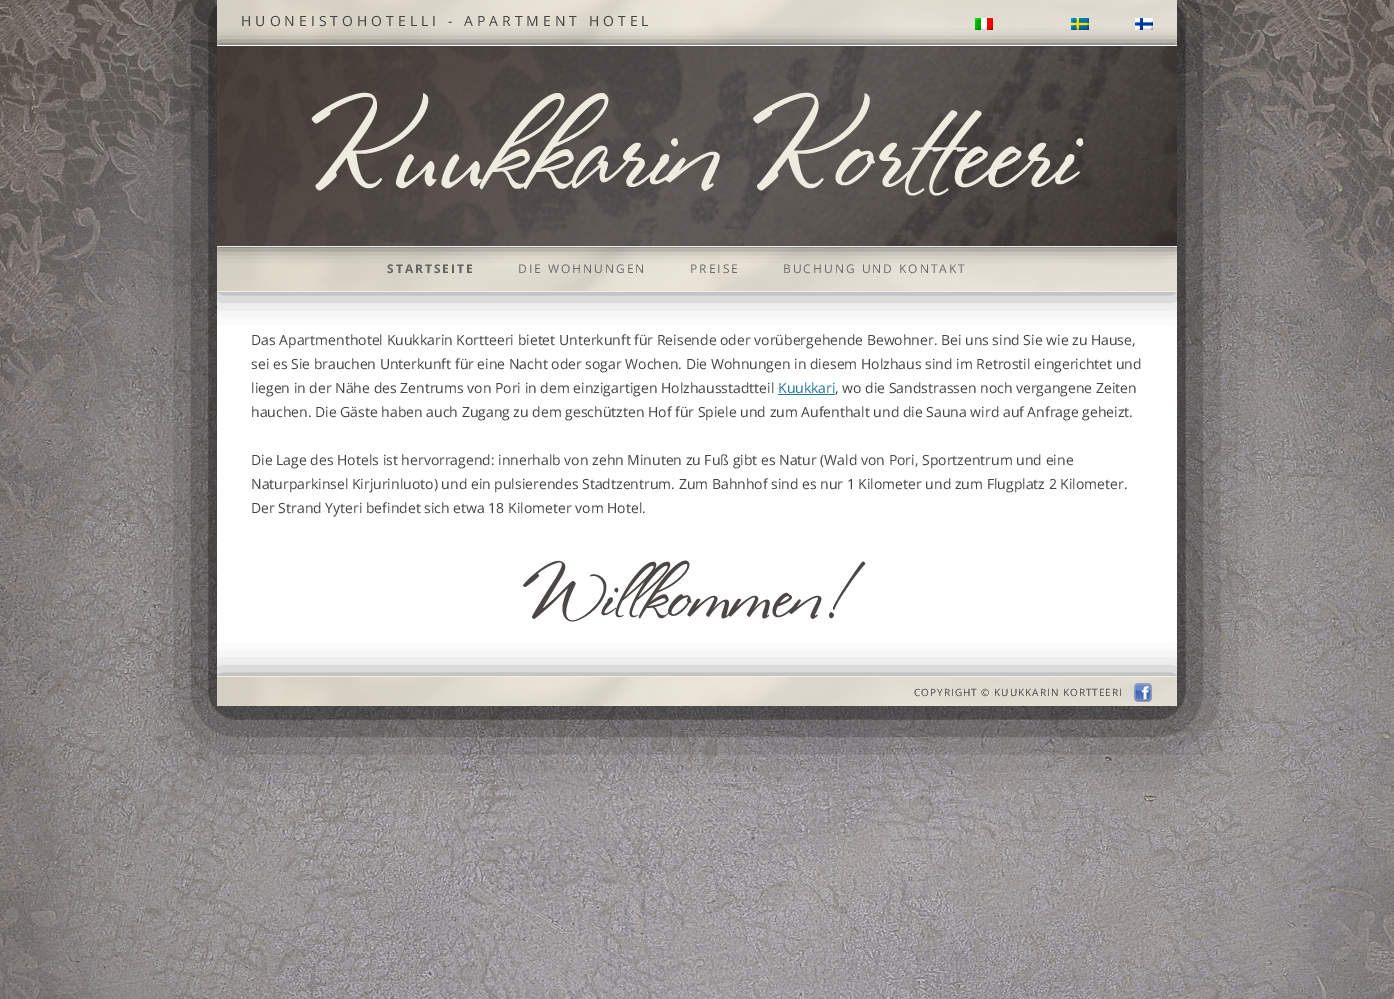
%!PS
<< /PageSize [1394 999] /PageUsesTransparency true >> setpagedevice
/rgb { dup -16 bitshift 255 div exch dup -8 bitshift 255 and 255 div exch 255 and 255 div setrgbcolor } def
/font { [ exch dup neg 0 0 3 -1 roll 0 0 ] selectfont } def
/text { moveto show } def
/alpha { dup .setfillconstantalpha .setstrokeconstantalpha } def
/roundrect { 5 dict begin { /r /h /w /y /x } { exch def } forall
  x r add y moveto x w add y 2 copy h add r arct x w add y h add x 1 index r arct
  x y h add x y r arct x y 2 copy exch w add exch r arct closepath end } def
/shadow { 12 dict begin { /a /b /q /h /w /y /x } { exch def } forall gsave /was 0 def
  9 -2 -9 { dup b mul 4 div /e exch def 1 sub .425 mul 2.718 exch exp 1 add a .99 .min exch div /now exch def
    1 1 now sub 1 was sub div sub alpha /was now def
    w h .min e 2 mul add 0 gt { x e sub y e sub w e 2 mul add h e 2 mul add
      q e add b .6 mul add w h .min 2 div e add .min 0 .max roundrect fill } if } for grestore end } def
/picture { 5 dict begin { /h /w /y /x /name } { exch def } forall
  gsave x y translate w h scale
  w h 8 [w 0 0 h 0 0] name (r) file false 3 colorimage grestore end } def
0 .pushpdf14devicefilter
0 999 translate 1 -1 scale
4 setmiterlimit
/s1 { /OpenSans-Regular 14 font 16#444444 rgb } def
/s2 { /OpenSans-Regular 14 font 16#21759B rgb } def
16#FFFFFF rgb
0 0 1394 999 rectfill
(pic1.raw) 0 0 1394 999 picture
16#000000 rgb
217 5 960 706 0 35 1 shadow
16#FFFFFF rgb
217 292 960 384 rectfill
(pic2.raw) 217 0 960 45 picture
/OpenSans-Regular 14 font
16#444444 rgb
241 26 moveto 4 0 (HUONEISTOHOTELLI - APARTMENT HOTEL) ashow
gsave
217 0 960 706 rectclip
16#888888 rgb
217 246 960 46 0 15 1 shadow
grestore
(pic7.raw) 217 247 960 44 picture
gsave
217 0 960 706 rectclip
217 45 960 201 0 7.5 1 shadow
grestore
(pic3.raw) 975 18 18 12 picture
(pic4.raw) 1071 18 18 12 picture
(pic5.raw) 1135 18 18 12 picture
16#FFFFFF rgb
217 45 960 1 rectfill
(pic6.raw) 217 46 960 200 picture
16#EDEDED rgb
217 246 960 1 rectfill
217 291 960 1 rectfill
/OpenSans-Bold 12 font
16#636363 rgb
387 273 moveto 2 0 (STARTSEITE) ashow
/OpenSans-Regular 12 font
16#6A6A6A rgb
518 273 moveto 2 0 (DIE WOHNUNGEN) ashow
690 273 moveto 2 0 (PREISE) ashow
783 273 moveto 2 0 (BUCHUNG UND KONTAKT) ashow
s1
(Das Apartmenthotel Kuukkarin Kortteeri bietet Unterkunft für Reisende oder vorübergehende Bewohner. Bei uns sind Sie wie zu Hause,) 251 345 text
(sei es Sie brauchen Unterkunft für eine Nacht oder sogar Wochen. Die Wohnungen in diesem Holzhaus sind im Retrostil eingerichtet und) 251 369 text
(liegen in der Nähe des Zentrums von Pori in dem einzigartigen Holzhausstadtteil) 251 393 text
s2
(Kuukkari) 778 393 text
778 394 57 1 rectfill
s1
(, wo die Sandstrassen noch vergangene Zeiten) 835 393 text
(hauchen. Die Gäste haben auch Zugang zu dem geschützten Hof für Spiele und zum Aufenthalt und die Sauna wird auf Anfrage geheizt.) 251 417 text
(Die Lage des Hotels ist hervorragend: innerhalb von zehn Minuten zu Fuß gibt es Natur \(Wald von Pori, Sportzentrum und eine) 251 465 text
(Naturparkinsel Kirjurinluoto\) und ein pulsierendes Stadtzentrum. Zum Bahnhof sind es nur 1 Kilometer und zum Flugplatz 2 Kilometer.) 251 489 text
(Der Strand Yyteri befindet sich etwa 18 Kilometer vom Hotel.) 251 513 text
(pic8.raw) 523 560 343 62 picture
gsave
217 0 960 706 rectclip
16#888888 rgb
217 676 960 30 0 15 1 shadow
grestore
(pic9.raw) 217 677 960 29 picture
16#EDEDED rgb
217 676 960 1 rectfill
/OpenSans-Regular 10 font
16#444444 rgb
914 696 moveto 1 0 (COPYRIGHT © KUUKKARIN KORTTEERI) ashow
(pic10.raw) 1133 682 20 21 picture
.poppdf14devicefilter showpage
